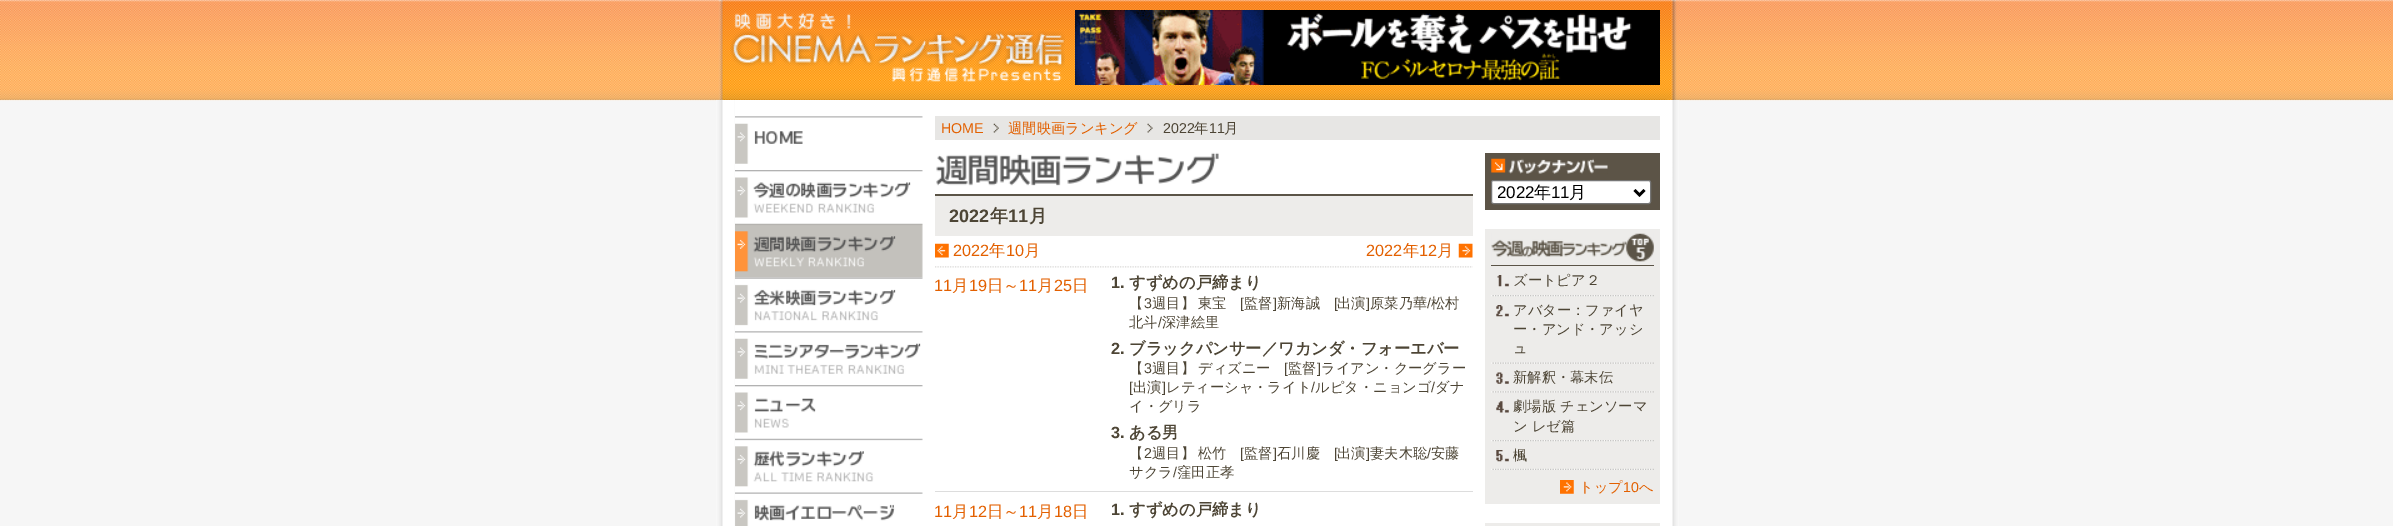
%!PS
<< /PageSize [2393 526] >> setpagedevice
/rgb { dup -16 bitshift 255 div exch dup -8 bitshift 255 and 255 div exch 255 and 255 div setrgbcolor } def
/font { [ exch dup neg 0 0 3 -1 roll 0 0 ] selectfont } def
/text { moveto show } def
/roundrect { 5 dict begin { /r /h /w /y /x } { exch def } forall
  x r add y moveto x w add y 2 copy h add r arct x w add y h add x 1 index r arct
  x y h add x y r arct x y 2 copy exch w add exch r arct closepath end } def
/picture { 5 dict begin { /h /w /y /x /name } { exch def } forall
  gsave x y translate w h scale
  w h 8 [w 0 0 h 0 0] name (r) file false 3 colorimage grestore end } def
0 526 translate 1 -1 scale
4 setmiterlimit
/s1 { /LiberationSans-Regular 14.25 font 16#E36000 rgb } def
/s2 { /WenQuanYiZenHei-Medium 14.25 font 16#E36000 rgb } def
/s3 { /LiberationSans-Regular 14.25 font 16#4D4535 rgb } def
/s4 { /WenQuanYiZenHei-Medium 14.25 font 16#4D4535 rgb } def
/s5 { /LiberationSans-Bold 18 font 16#4D4535 rgb } def
/s6 { /WenQuanYiZenHei-Bold 18 font 16#4D4535 rgb } def
/s7 { /LiberationSans-Regular 16.25 font 16#E36000 rgb } def
/s8 { /WenQuanYiZenHei-Medium 16.25 font 16#E36000 rgb } def
/s9 { /LiberationSans-Bold 16.25 font 16#4D4535 rgb } def
/s10 { /WenQuanYiZenHei-Bold 16.25 font 16#4D4535 rgb } def
/s11 { /LiberationSans-Regular 17 font 16#000000 rgb } def
/s12 { /WenQuanYiZenHei-Medium 17 font 16#000000 rgb } def
16#F6F6F6 rgb
0 0 2393 526 rectfill
(pic1.raw) 0 0 2393 101 picture
(pic2.raw) 718 0 959 100 picture
(pic3.raw) 730 12 335 70 picture
(pic4.raw) 1075 10 585 75 picture
(pic5.raw) 716 100 963 426 picture
16#FFFFFF rgb
735 100 188 426 rectfill
(pic6.raw) 735 116 188 48 picture
(pic7.raw) 735 170 188 48 picture
(pic8.raw) 735 223 188 55 picture
(pic9.raw) 735 277 188 49 picture
(pic10.raw) 735 331 188 48 picture
(pic11.raw) 735 385 188 48 picture
(pic12.raw) 735 438 188 49 picture
(pic13.raw) 735 492 188 34 picture
16#E7E6E4 rgb
935 116 725 24 rectfill
s1
(HOME) 941 133 text
(pic14.raw) 993 123 6 10 picture
s2
(週間映画ランキング) 1008 133 text
(pic15.raw) 1147 123 6 10 picture
s3
(2022) 1163 133 text
s4
(年) 1194 133 text
s3
(11) 1209 133 text
s4
(月) 1224 133 text
16#5B5447 rgb
935 194 538 2 rectfill
(pic16.raw) 936 152 283 34 picture
16#EDECEA rgb
935 196 538 40 rectfill
s5
(2022) 949 222 text
s6
(年) 990 222 text
s5
(11) 1008 222 text
s6
(月) 1029 222 text
(pic17.raw) 935 243 14 15 picture
s7
(2022) 953 256 text
s8
(年) 989 256 text
s7
(10) 1006 256 text
s8
(月) 1024 256 text
s7
(2022) 1366 256 text
s8
(年) 1403 256 text
s7
(12) 1419 256 text
s8
(月) 1437 256 text
(pic18.raw) 1458 243 15 15 picture
(pic19.raw) 935 266 538 2 picture
16#DDDDDD rgb
935 491 538 1 rectfill
s7
(11) 934 291 text
s8
(月) 952 291 text
s7
(19) 969 291 text
s8
(日～) 987 291 text
s7
(11) 1019 291 text
s8
(月) 1037 291 text
s7
(25) 1054 291 text
s8
(日) 1072 291 text
s9
(1.) 1111 288 text
s10
(すずめの戸締まり) 1129 288 text
s4
(【) 1129 308 text
s3
(3) 1144 308 text
s4
(週目】) 1152 308 text
(東宝) 1198 308 text
s3
([) 1240 308 text
s4
(監督) 1244 308 text
s3
(]) 1273 308 text
s4
(新海誠) 1277 308 text
s3
([) 1334 308 text
s4
(出演) 1337 308 text
s3
(]) 1366 308 text
s4
(原菜乃華) 1370 308 text
s3
(/) 1427 308 text
s4
(松村) 1431 308 text
(北斗) 1129 327 text
s3
(/) 1158 327 text
s4
(深津絵里) 1162 327 text
s9
(2.) 1111 354 text
s10
(ブラックパンサー／ワカンダ・フォーエバー) 1129 354 text
s4
(【) 1129 373 text
s3
(3) 1144 373 text
s4
(週目】) 1152 373 text
(ディズニー) 1198 373 text
s3
([) 1284 373 text
s4
(監督) 1288 373 text
s3
(]) 1317 373 text
s4
(ライアン・クーグラー) 1321 373 text
s3
([) 1129 392 text
s4
(出演) 1133 392 text
s3
(]) 1162 392 text
s4
(レティーシャ・ライト) 1166 392 text
s3
(/) 1311 392 text
s4
(ルピタ・ニョンゴ) 1315 392 text
s3
(/) 1431 392 text
s4
(ダナ) 1435 392 text
(イ・グリラ) 1129 411 text
s9
(3.) 1111 438 text
s10
(ある男) 1129 438 text
s4
(【) 1129 458 text
s3
(2) 1144 458 text
s4
(週目】) 1152 458 text
(松竹) 1198 458 text
s3
([) 1240 458 text
s4
(監督) 1244 458 text
s3
(]) 1273 458 text
s4
(石川慶) 1277 458 text
s3
([) 1334 458 text
s4
(出演) 1337 458 text
s3
(]) 1366 458 text
s4
(妻夫木聡) 1370 458 text
s3
(/) 1427 458 text
s4
(安藤) 1431 458 text
(サクラ) 1129 477 text
s3
(/) 1173 477 text
s4
(窪田正孝) 1177 477 text
s7
(11) 934 517 text
s8
(月) 952 517 text
s7
(12) 969 517 text
s8
(日～) 987 517 text
s7
(11) 1019 517 text
s8
(月) 1037 517 text
s7
(18) 1054 517 text
s8
(日) 1072 517 text
s9
(1.) 1111 515 text
s10
(すずめの戸締まり) 1129 515 text
16#5C5447 rgb
1485 153 175 57 rectfill
(pic20.raw) 1491 158 117 16 picture
16#FFFFFF rgb
1491.5 180.5 159 23 2 roundrect gsave fill grestore
16#767676 rgb
stroke
16#000000 rgb
2.5 setlinewidth
1634.5 190 moveto 1639.5 195 lineto 1644.5 190 lineto stroke
gsave
1498 181 132 22 rectclip
s11
(2022) 1497 198 text
grestore
s12
(年) 1534 198 text
s11
(11) 1551 198 text
s12
(月) 1569 198 text
16#EDECEA rgb
1485 229 175 275 rectfill
16#5B5447 rgb
1491 265 163 1 rectfill
(pic21.raw) 1491 233 163 29 picture
(pic22.raw) 1491 295 163 2 picture
(pic23.raw) 1497 275 12 12 picture
s4
(ズートピア２) 1513 285 text
(pic24.raw) 1491 362 163 2 picture
(pic25.raw) 1496 305 13 12 picture
(アバター：ファイヤ) 1513 315 text
(ー・アンド・アッシ) 1513 334 text
(ュ) 1513 353 text
(pic26.raw) 1491 391 163 2 picture
(pic27.raw) 1496 372 13 12 picture
(新解釈・幕末伝) 1513 382 text
(pic22.raw) 1491 440 163 2 picture
(pic28.raw) 1496 401 13 12 picture
(劇場版 チェンソーマ) 1513 411 text
(ン レゼ篇) 1513 431 text
(pic29.raw) 1491 468 163 2 picture
(pic30.raw) 1496 450 13 12 picture
(楓) 1513 460 text
(pic31.raw) 1560 480 14 14 picture
s2
(トップ) 1579 492 text
s1
(10) 1623 492 text
s2
(へ) 1639 492 text
16#EDECEA rgb
1485 523 175 3 rectfill
showpage
